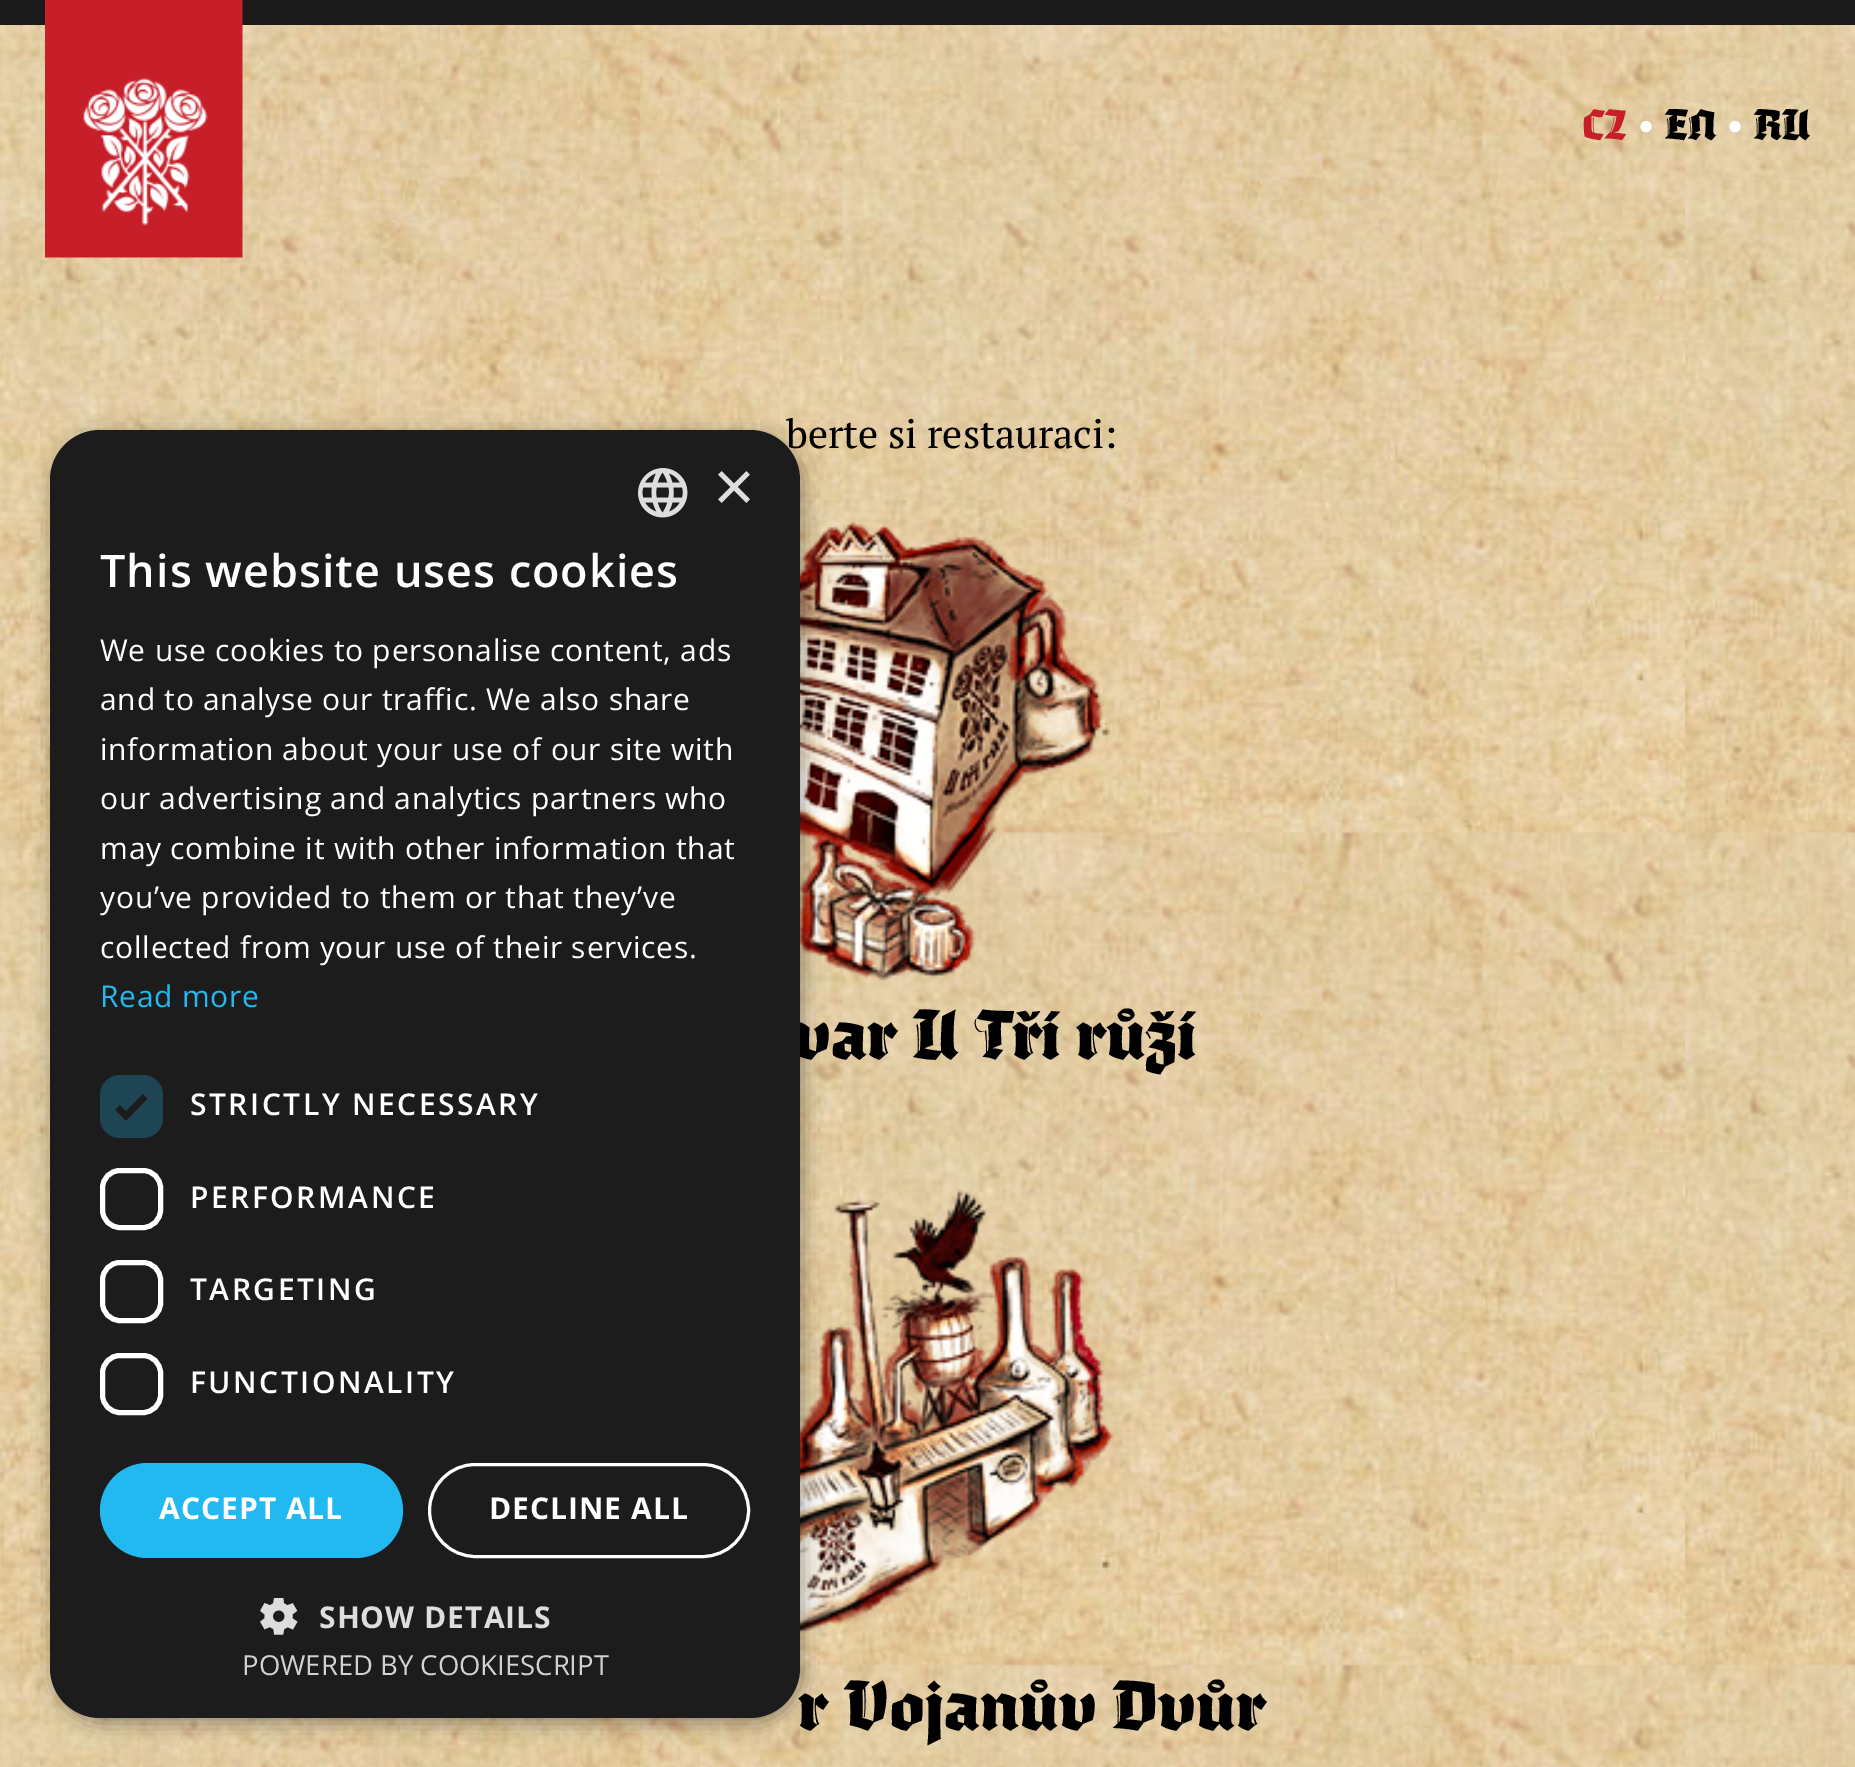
%!PS
<< /PageSize [1855 1767] /PageUsesTransparency true >> setpagedevice
/rgb { dup -16 bitshift 255 div exch dup -8 bitshift 255 and 255 div exch 255 and 255 div setrgbcolor } def
/font { [ exch dup neg 0 0 3 -1 roll 0 0 ] selectfont } def
/text { moveto show } def
/alpha { dup .setfillconstantalpha .setstrokeconstantalpha } def
/roundrect { 5 dict begin { /r /h /w /y /x } { exch def } forall
  x r add y moveto x w add y 2 copy h add r arct x w add y h add x 1 index r arct
  x y h add x y r arct x y 2 copy exch w add exch r arct closepath end } def
/shadow { 12 dict begin { /a /b /q /h /w /y /x } { exch def } forall gsave /was 0 def
  9 -2 -9 { dup b mul 4 div /e exch def 1 sub .425 mul 2.718 exch exp 1 add a .99 .min exch div /now exch def
    1 1 now sub 1 was sub div sub alpha /was now def
    w h .min e 2 mul add 0 gt { x e sub y e sub w e 2 mul add h e 2 mul add
      q e add b .6 mul add w h .min 2 div e add .min 0 .max roundrect fill } if } for grestore end } def
/picture { 5 dict begin { /h /w /y /x /name } { exch def } forall
  gsave x y translate w h scale
  w h 8 [w 0 0 h 0 0] name (r) file false 3 colorimage grestore end } def
0 .pushpdf14devicefilter
0 1767 translate 1 -1 scale
4 setmiterlimit
/s1 { /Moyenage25-Regular 40 font 16#C71F2A rgb } def
/s2 { /PTSerif-Regular 40 font 16#FFFFFF rgb } def
/s3 { /Moyenage25-Regular 40 font 16#000000 rgb } def
/s4 { /PTSerif-Regular 40 font 16#000000 rgb } def
/s5 { /Moyenage25-Regular 65 font 16#000000 rgb } def
/s6 { /LiberationSans-Regular 72 font 16#DDDDDD rgb } def
/s7 { /OpenSans-Regular 27.5 font 16#D2D2D2 rgb } def
16#FFFFFF rgb
0 0 1855 1767 rectfill
(pic1.raw) 0 25 1855 1742 picture
16#1A1A1A rgb
0 0 1855 25 rectfill
(pic2.raw) 45 0 198 258 picture
s1
(CZ) 1582 139 text
s2
(•) 1637 139 text
s3
(EN) 1665 139 text
s2
(•) 1726 139 text
s3
(RU) 1754 139 text
(pic5.raw) 800 511 307 470 picture
(pic6.raw) 800 1189 314 445 picture
53 435 750 1288 50 10 0.35 shadow
s4
(berte si restauraci:) 786 448 text
s5
(var U Tří růží) 793 1058 text
(r Vojanův Dvůr) 798 1729 text
16#1C1C1C rgb
50 430 750 1288 50 roundrect fill
(pic3.raw) 638 468 50 50 picture
s6
(×) 713 511 text
/OpenSans-SemiBold 45 font
16#FFFFFF rgb
100 587 moveto 1 0 (This website uses cookies) ashow
/OpenSans-Regular 30 font
100 661 moveto 0.75 0 (We use cookies to personalise content, ads) ashow
100 710 moveto 0.75 0 (and to analyse our traffic. We also share) ashow
100 760 moveto 0.75 0 (information about your use of our site with) ashow
100 809 moveto 0.75 0 (our advertising and analytics partners who) ashow
100 859 moveto 0.75 0 (may combine it with other information that) ashow
100 908 moveto 0.75 0 (you’ve provided to them or that they’ve) ashow
100 958 moveto 0.75 0 (collected from your use of their services.) ashow
16#22B8F0 rgb
100 1007 moveto 0.75 0 (Read more) ashow
16#1E4553 rgb
100 1075 63 63 20 roundrect fill
16#1C1C1C rgb
6.6 setlinewidth
117.5 1107.5 moveto 126 1116 lineto 145 1096.5 lineto stroke
/OpenSans-SemiBold 30 font
16#FFFFFF rgb
190 1115 moveto 2.5 0 (STRICTLY NECESSARY) ashow
5 setlinewidth
102.5 1170.5 58 57 17.5 roundrect stroke
190 1208 moveto 2.5 0 (PERFORMANCE) ashow
102.5 1262.5 58 58 17.5 roundrect stroke
190 1300 moveto 2.5 0 (TARGETING) ashow
102.5 1355.5 58 57 17.5 roundrect stroke
190 1393 moveto 2.5 0 (FUNCTIONALITY) ashow
16#22B8F0 rgb
100 1463 303 95 47.5 roundrect fill
/OpenSans-Bold 30 font
16#FFFFFF rgb
159 1519 moveto 1 0 (ACCEPT ALL) ashow
3 setlinewidth
429.5 1464.5 319 92 46 roundrect stroke
489 1519 moveto 1 0 (DECLINE ALL) ashow
(pic4.raw) 260 1598 38 37 picture
16#DDDDDD rgb
319 1628 moveto 1 0 (SHOW DETAILS) ashow
s7
(POWERED BY COOKIESCRIPT) 242 1675 text
.poppdf14devicefilter showpage
